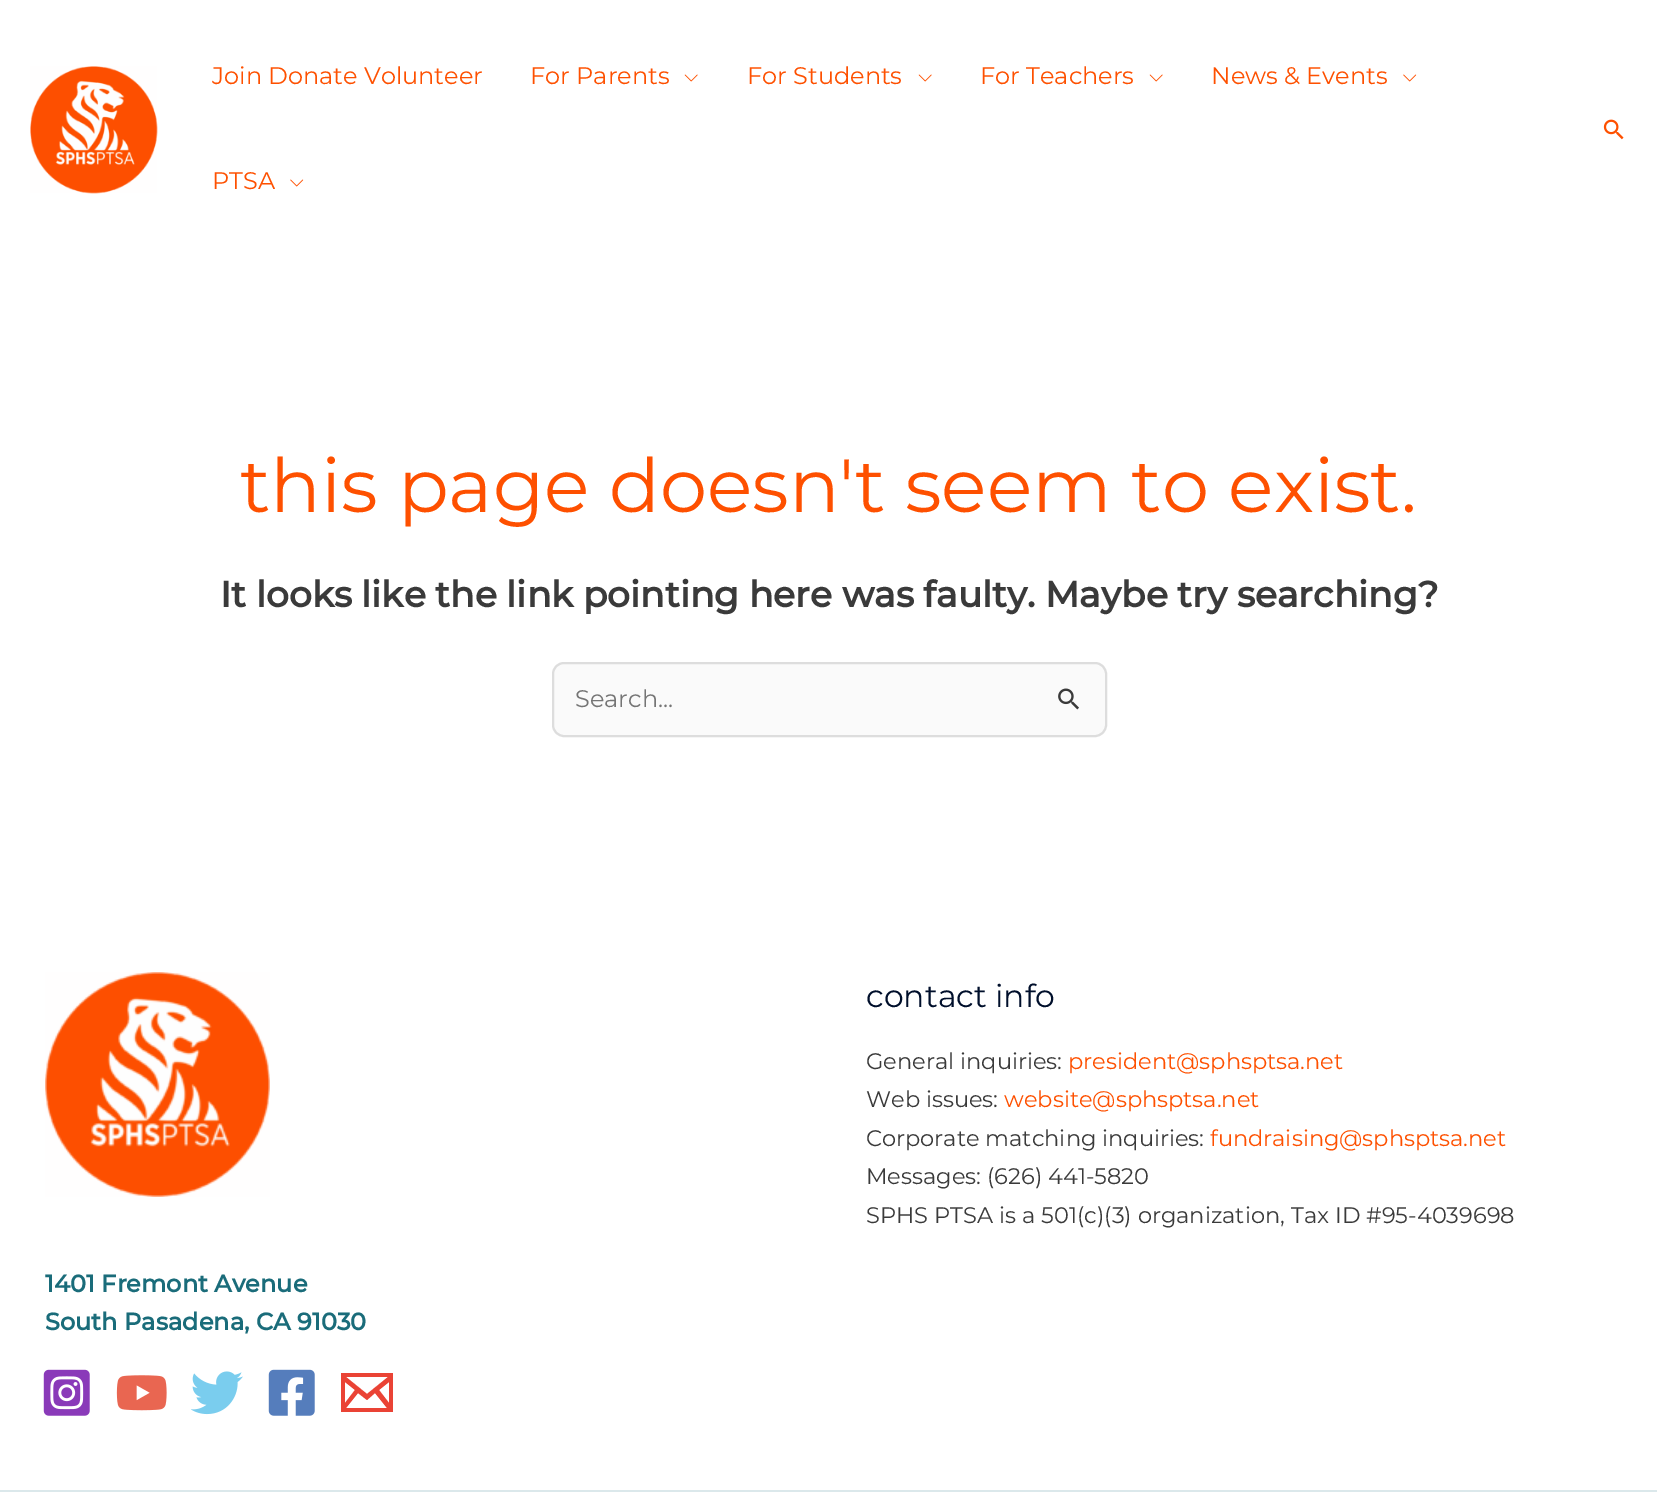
%!PS
<< /PageSize [1657 1504] >> setpagedevice
/rgb { dup -16 bitshift 255 div exch dup -8 bitshift 255 and 255 div exch 255 and 255 div setrgbcolor } def
/font { [ exch dup neg 0 0 3 -1 roll 0 0 ] selectfont } def
/text { moveto show } def
/roundrect { 5 dict begin { /r /h /w /y /x } { exch def } forall
  x r add y moveto x w add y 2 copy h add r arct x w add y h add x 1 index r arct
  x y h add x y r arct x y 2 copy exch w add exch r arct closepath end } def
/picture { 5 dict begin { /h /w /y /x /name } { exch def } forall
  gsave x y translate w h scale
  w h 8 [w 0 0 h 0 0] name (r) file false 3 colorimage grestore end } def
0 1504 translate 1 -1 scale
4 setmiterlimit
/s1 { /Montserrat-Regular 24 font 16#FE5000 rgb } def
/s2 { /Montserrat-Regular 75 font 16#FE5000 rgb } def
/s3 { /Montserrat-Bold 36 font 16#3A3A3A rgb } def
/s4 { /Montserrat-Regular 24 font 16#757575 rgb } def
/s5 { /Montserrat-Regular 31.5 font 16#000F2B rgb } def
/s6 { /Montserrat-Regular 22.5 font 16#3A3A3A rgb } def
/s7 { /Montserrat-Regular 22.5 font 16#FE5000 rgb } def
/s8 { /Montserrat-Bold 24 font 16#1A6C7A rgb } def
16#FFFFFF rgb
0 0 1657 1504 rectfill
(pic1.raw) 30 66 128 128 picture
s1
(Join Donate Volunteer) 212 84 text
(For Parents) 530 84 text
(pic2.raw) 684 74 14 8 picture
(For Students) 747 84 text
(pic2.raw) 918 74 14 8 picture
(For Teachers) 980 84 text
(pic2.raw) 1149 74 14 8 picture
(News & Events) 1211 84 text
(pic3.raw) 1403 74 14 8 picture
(PTSA) 212 189 text
(pic3.raw) 290 179 14 8 picture
(pic4.raw) 1603 119 21 21 picture
s2
(this page doesn't seem to exist.) 240 512 text
s3
(It looks like the link pointing here was faulty. Maybe try searching?) 220 607 text
16#FAFAFA rgb
553 663 553 73 11 roundrect gsave fill grestore
16#DDDDDD rgb
2 setlinewidth
stroke
s4
(Search...) 575 707 text
(pic5.raw) 1058 688 21 22 picture
s5
(contact info) 866 1007 text
s6
(General inquiries:) 866 1069 text
s7
(president@sphsptsa.net) 1068 1069 text
s6
(Web issues:) 866 1107 text
s7
(website@sphsptsa.net) 1004 1107 text
s6
(Corporate matching inquiries:) 866 1146 text
s7
(fundraising@sphsptsa.net) 1210 1146 text
s6
(Messages: \(626\) 441-5820) 866 1184 text
(SPHS PTSA is a 501\(c\)\(3\) organization, Tax ID #95-4039698) 866 1223 text
(pic6.raw) 45 972 225 225 picture
s8
(1401 Fremont Avenue) 45 1292 text
(South Pasadena, CA 91030) 45 1330 text
(pic7.raw) 43 1369 47 47 picture
(pic8.raw) 116 1375 51 36 picture
(pic9.raw) 191 1371 52 44 picture
(pic10.raw) 268 1369 47 47 picture
gsave
341 1367 52 52 rectclip
16#EA4335 rgb
340 1373 moveto 340 1412 lineto 393 1412 lineto 393 1373 lineto closepath 355 1390 moveto 345 1403 lineto 345 1382 lineto closepath 346 1377 moveto 388 1377 lineto 367 1394 lineto closepath 358 1393 moveto 367 1400 lineto 375 1393 lineto 387 1408 lineto 346 1408 lineto closepath 379 1390 moveto 389 1382 lineto 389 1403 lineto closepath fill
grestore
16#DBE8EB rgb
0 1490 1657 2 rectfill
showpage
